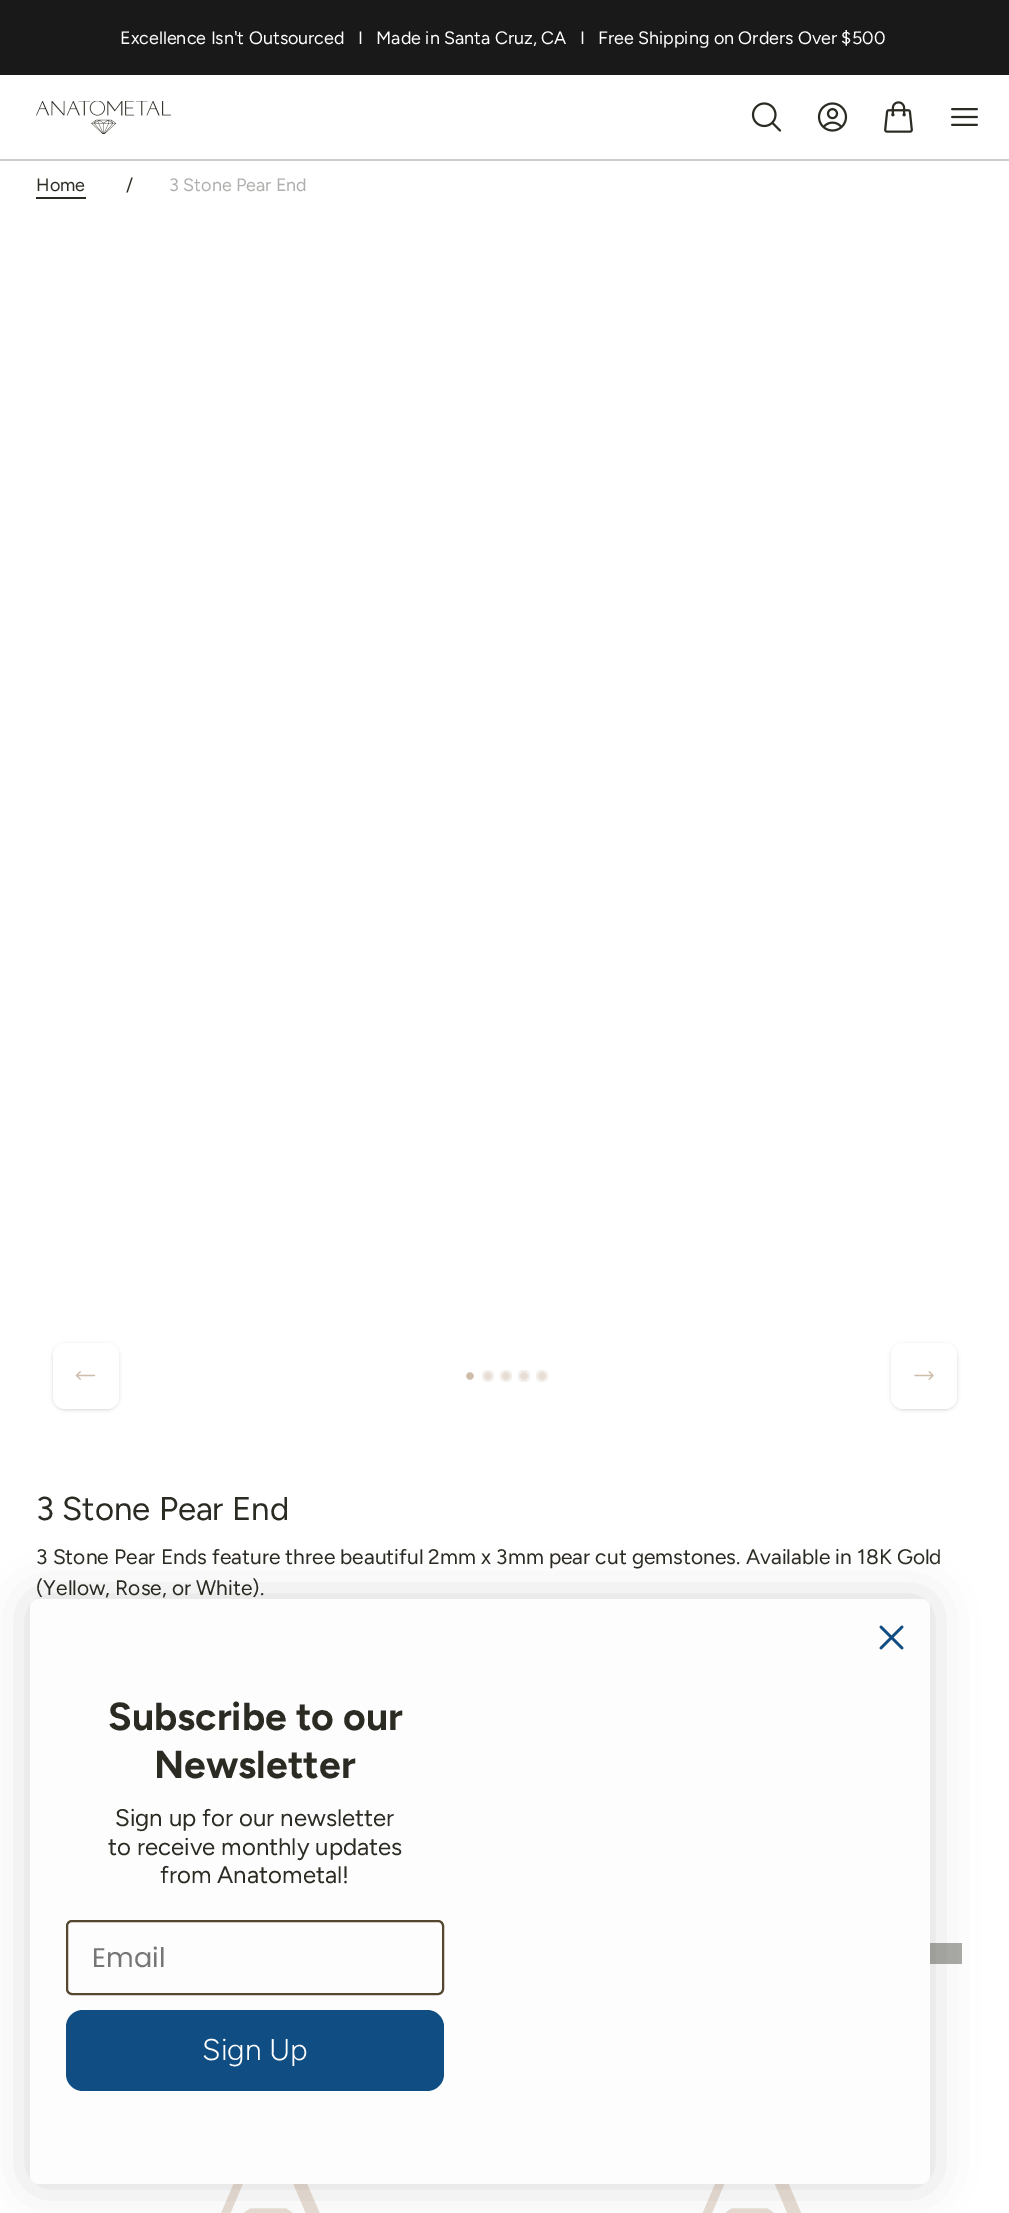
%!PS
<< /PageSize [1009 2213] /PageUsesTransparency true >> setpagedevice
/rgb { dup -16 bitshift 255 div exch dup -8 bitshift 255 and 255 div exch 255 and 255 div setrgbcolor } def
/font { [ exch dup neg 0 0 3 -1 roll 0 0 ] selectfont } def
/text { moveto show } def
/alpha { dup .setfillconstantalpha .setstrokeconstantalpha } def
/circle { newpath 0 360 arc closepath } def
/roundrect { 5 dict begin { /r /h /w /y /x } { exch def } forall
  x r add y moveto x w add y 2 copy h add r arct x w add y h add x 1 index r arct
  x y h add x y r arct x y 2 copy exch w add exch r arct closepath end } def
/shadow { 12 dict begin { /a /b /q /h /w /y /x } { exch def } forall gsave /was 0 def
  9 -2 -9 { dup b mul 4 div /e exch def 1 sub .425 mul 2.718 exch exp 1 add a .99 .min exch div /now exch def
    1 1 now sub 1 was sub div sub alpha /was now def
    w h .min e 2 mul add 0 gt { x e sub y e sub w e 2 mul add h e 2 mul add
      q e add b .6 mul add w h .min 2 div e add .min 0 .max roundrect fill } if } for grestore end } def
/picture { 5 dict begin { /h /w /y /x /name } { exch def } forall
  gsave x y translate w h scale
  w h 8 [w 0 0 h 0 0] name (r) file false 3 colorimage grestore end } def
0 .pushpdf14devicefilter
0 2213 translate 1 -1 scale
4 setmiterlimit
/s1 { /Figtree-Regular 18 font 16#FFFFFF rgb } def
/s2 { /Figtree-Regular 18 font 16#2C2B23 rgb } def
/s3 { /Figtree-Regular 18 font 16#B0AFAD rgb } def
/s4 { /Figtree-Regular 33 font 16#2C2B23 rgb } def
/s5 { /Figtree-Regular 21 font 16#2C2B23 rgb } def
/s6 { /Figtree-Bold 39 font 16#2C2B23 rgb } def
/s7 { /Figtree-Regular 24 font 16#2C2B23 rgb } def
/s8 { /Poppins-Regular 27 font 16#767676 rgb } def
/s9 { /Figtree-Light 30 font 16#FFFFFF rgb } def
16#FFFFFF rgb
0 0 1009 2213 rectfill
16#CCCCCC rgb
0 159 1009 2 rectfill
16#191919 rgb
0 0 1009 75 rectfill
s1
(Excellence Isn't Outsourced   I   Made in Santa Cruz, CA   I   Free Shipping on Orders Over $500) 120 44 text
(pic1.raw) 36 101 135 33 picture
(pic2.raw) 751 102 31 30 picture
(pic3.raw) 817 102 31 30 picture
(pic4.raw) 884 101 29 32 picture
(pic5.raw) 951 108 27 18 picture
s2
(Home) 36 191 text
36 197 50 2 rectfill
(/) 126 191 text
s3
(3 Stone Pear End) 169 191 text
16#000000 rgb
54 1346 63 63 11 1.5 0.1 shadow
53 1344 66 66 12 2 0.1 shadow
16#FFFFFF rgb
53 1343 66 66 12 roundrect fill
(pic6.raw) 75 1371 21 9 picture
16#CEBDAB rgb
470 1376 5 circle gsave fill grestore
16#FFFFFF rgb
2 setlinewidth
stroke
16#E7DED5 rgb
488 1376 6 circle fill
0.5 alpha
16#FFFFFF rgb
488 1376 5 circle stroke
1 alpha
16#E7DED5 rgb
506 1376 6 circle fill
0.5 alpha
16#FFFFFF rgb
506 1376 5 circle stroke
1 alpha
16#E7DED5 rgb
524 1376 6 circle fill
0.5 alpha
16#FFFFFF rgb
524 1376 5 circle stroke
1 alpha
16#E7DED5 rgb
542 1376 6 circle fill
0.5 alpha
16#FFFFFF rgb
542 1376 5 circle stroke
1 alpha
16#000000 rgb
893 1346 63 63 11 1.5 0.1 shadow
891 1344 66 66 12 2 0.1 shadow
16#FFFFFF rgb
891 1343 66 66 12 roundrect fill
(pic7.raw) 914 1371 20 9 picture
s4
(3 Stone Pear End) 36 1520 text
s5
(3 Stone Pear Ends feature three beautiful 2mm x 3mm pear cut gemstones. Available in 18K Gold) 36 1564 text
(\(Yellow, Rose, or White\).) 36 1595 text
(pic8.raw) 221 2184 99 29 picture
16#AAAAA7 rgb
930 1943 32 21 rectfill
(pic9.raw) 702 2184 99 29 picture
16#000000 rgb
30 1599 900 585 9 22.5 0.15 shadow
16#FDFDFD rgb
30 1599 900 585 9 roundrect fill
16#104D82 rgb
2.6 setlinewidth
1 setlinecap
1 setlinejoin
881 1627 moveto 902 1648 lineto 881 1648 moveto 902 1627 lineto closepath stroke
s6
(Subscribe to our) 108 1730 text
(Newsletter) 154 1778 text
s7
(Sign up for our newsletter) 115 1826 text
(to receive monthly updates) 108 1855 text
(from Anatometal!) 160 1883 text
16#54462F rgb
2 setlinewidth
0 setlinecap
0 setlinejoin
67 1921 376 73 5 roundrect stroke
s8
(Email) 92 1967 text
16#104D82 rgb
66 2010 378 81 17 roundrect fill
s9
(Sign Up) 202 2060 text
.poppdf14devicefilter showpage
